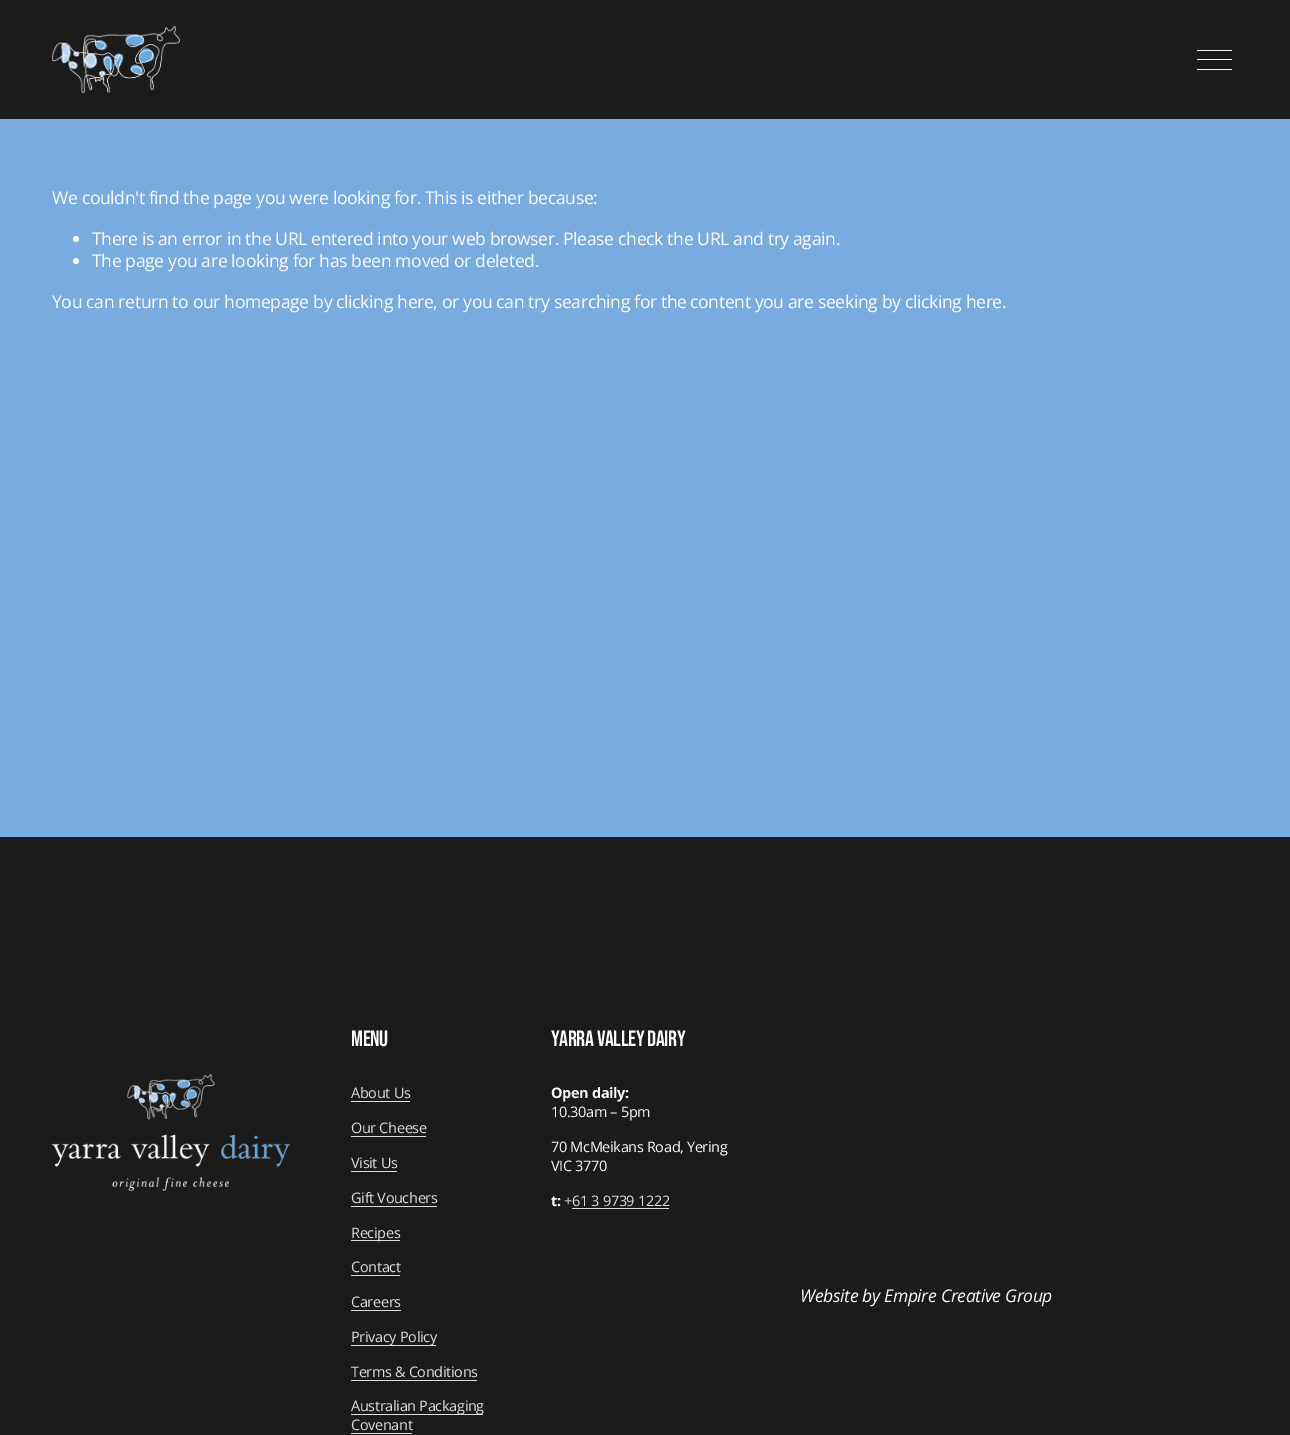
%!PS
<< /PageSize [1290 1435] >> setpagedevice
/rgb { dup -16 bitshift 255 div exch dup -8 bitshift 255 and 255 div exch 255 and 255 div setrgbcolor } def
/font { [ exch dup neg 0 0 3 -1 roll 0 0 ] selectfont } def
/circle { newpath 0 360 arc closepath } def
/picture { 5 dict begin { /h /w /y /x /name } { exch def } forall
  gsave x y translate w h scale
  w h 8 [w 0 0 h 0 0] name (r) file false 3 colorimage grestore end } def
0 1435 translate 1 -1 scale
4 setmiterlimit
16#7AABDE rgb
0 0 1290 1435 rectfill
16#1B1B1B rgb
0 0 1290 119 rectfill
(pic1.raw) 51 25 130 68 picture
16#FAFAFA rgb
1197 50 35 1 rectfill
1197 59 35 1 rectfill
1197 69 35 1 rectfill
/OpenSans-Regular 17.55 font
52 204 moveto -0.35 0 (We couldn't find the page you were looking for. This is either because:) ashow
76 239 3 circle fill
92 245 moveto -0.35 0 (There is an error in the URL entered into your web browser. Please check the URL and try again.) ashow
76 261 3 circle fill
92 267 moveto -0.35 0 (The page you are looking for has been moved or deleted.) ashow
52 308 moveto -0.35 0 (You can return to our homepage by clicking here, or you can try searching for the) ashow
690 308 moveto -0.35 0 (content you are seeking by clicking here.) ashow
16#1B1B1B rgb
0 837 1290 598 rectfill
(pic2.raw) 52 1074 238 117 picture
/BebasNeue-Regular 22.25 font
16#FAFAFA rgb
351 1046 moveto -0.4 0 (MENU) ashow
/OpenSans-Regular 14.5 font
16#DCDCDC rgb
351 1098 moveto -0.35 0 (About Us) ashow
351 1101 59 1 rectfill
351 1133 moveto -0.35 0 (Our Cheese) ashow
351 1136 75 1 rectfill
351 1168 moveto -0.35 0 (Visit Us) ashow
351 1171 46 1 rectfill
351 1203 moveto -0.35 0 (Gift Vouchers) ashow
351 1206 86 1 rectfill
351 1240 49 1 rectfill
351 1238 moveto -0.35 0 (Recipes) ashow
351 1272 moveto -0.35 0 (Contact) ashow
351 1275 49 1 rectfill
351 1307 moveto -0.35 0 (Careers) ashow
351 1310 50 1 rectfill
351 1345 85 1 rectfill
351 1342 moveto -0.35 0 (Privacy Policy) ashow
351 1377 moveto -0.35 0 (Terms & Conditions) ashow
351 1380 126 1 rectfill
351 1414 132 1 rectfill
351 1411 moveto -0.35 0 (Australian Packaging) ashow
351 1430 moveto -0.35 0 (Covenant) ashow
351 1433 61 1 rectfill
/BebasNeue-Regular 22.25 font
16#FAFAFA rgb
551 1046 moveto -0.4 0 (YARRA VALLEY DAIRY) ashow
/OpenSans-Bold 14.5 font
551 1098 moveto -0.35 0 (Open daily:) ashow
/OpenSans-Regular 14.5 font
551 1117 moveto -0.35 0 (10.30am – 5pm) ashow
551 1152 moveto -0.35 0 (70 McMeikans Road, Yering) ashow
551 1171 moveto -0.35 0 (VIC 3770) ashow
/OpenSans-Bold 14.5 font
551 1206 moveto -0.35 0 (t:) ashow
/OpenSans-Regular 14.5 font
564 1206 moveto -0.35 0 (+) ashow
16#DCDCDC rgb
572 1206 moveto -0.35 0 (61 3 9739 1222) ashow
572 1208 97 1 rectfill
/OpenSans-Italic 17.55 font
16#FAFAFA rgb
800 1302 moveto -0.35 0 (Website by Empire Creative Group) ashow
showpage
